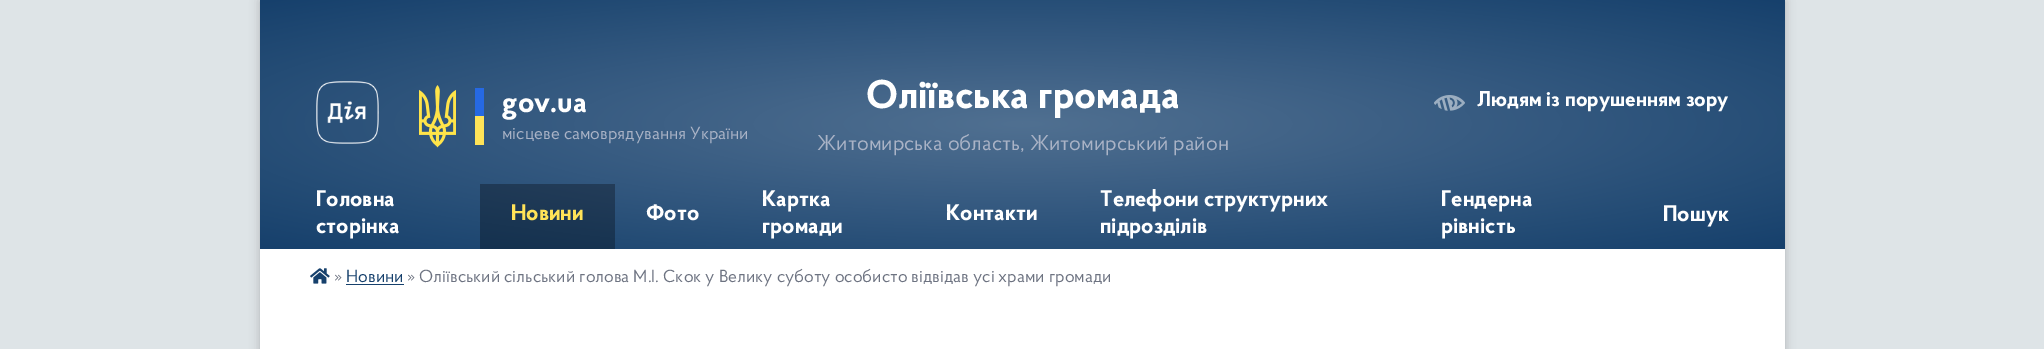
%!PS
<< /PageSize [2044 349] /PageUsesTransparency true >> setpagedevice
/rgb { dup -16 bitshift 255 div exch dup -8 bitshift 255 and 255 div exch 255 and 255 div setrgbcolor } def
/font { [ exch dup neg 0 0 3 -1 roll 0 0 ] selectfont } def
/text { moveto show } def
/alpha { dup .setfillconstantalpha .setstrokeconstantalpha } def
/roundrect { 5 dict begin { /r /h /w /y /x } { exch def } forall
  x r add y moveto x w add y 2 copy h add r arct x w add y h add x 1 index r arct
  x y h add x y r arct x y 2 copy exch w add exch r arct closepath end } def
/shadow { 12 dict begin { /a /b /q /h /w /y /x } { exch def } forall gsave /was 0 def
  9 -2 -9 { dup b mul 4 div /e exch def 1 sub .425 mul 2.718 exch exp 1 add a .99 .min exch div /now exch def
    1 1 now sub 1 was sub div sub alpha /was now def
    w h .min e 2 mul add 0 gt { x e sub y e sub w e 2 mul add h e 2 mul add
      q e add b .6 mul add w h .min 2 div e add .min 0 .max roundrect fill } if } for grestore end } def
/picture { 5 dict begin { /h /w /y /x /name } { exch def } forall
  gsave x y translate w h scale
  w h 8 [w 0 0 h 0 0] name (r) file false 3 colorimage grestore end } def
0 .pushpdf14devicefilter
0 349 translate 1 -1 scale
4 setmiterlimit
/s1 { /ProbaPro-Bold 30 font 16#FFFFFF rgb } def
/s2 { /ProbaPro-Regular 17.5 font 16#AAB3C6 rgb } def
/s3 { /ProbaPro-Bold 40 font 16#FFFFFF rgb } def
/s4 { /ProbaPro-Regular 21.25 font 16#AAB3C6 rgb } def
/s5 { /ProbaPro-Bold 21.25 font 16#FFFFFF rgb } def
/s6 { /ProbaPro-Bold 22.5 font 16#FFFFFF rgb } def
/s7 { /ProbaPro-Bold 22.5 font 16#FFE358 rgb } def
/s8 { /ProbaPro-Regular 17.5 font 16#6D7381 rgb } def
/s9 { /ProbaPro-Regular 17.5 font 16#16406C rgb } def
16#DEE4E7 rgb
0 0 2044 349 rectfill
16#000000 rgb
260 1 1525 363 0 5 0.2 shadow
16#FFFFFF rgb
260 249 1525 100 rectfill
gsave 260 0 moveto 1785 0 lineto 1785 249 lineto 260 249 lineto closepath clip newpath 1023 124 translate 1078 176 scale
<< /ShadingType 3 /ColorSpace /DeviceRGB /Coords [0 0 0 0 0 1] /Extend [true true] /Function << /FunctionType 2 /Domain [0 1] /C0 [0.314 0.439 0.569] /C1 [0.086 0.251 0.424] /N 1 >> >> shfill grestore
gsave 480 184 moveto 615 184 lineto 615 249 lineto 480 249 lineto closepath clip newpath 1023 124 translate 1078 176 scale
<< /ShadingType 3 /ColorSpace /DeviceRGB /Coords [0 0 0 0 0 1] /Extend [true true] /Function << /FunctionType 2 /Domain [0 1] /C0 [0.22 0.306 0.4] /C1 [0.059 0.176 0.298] /N 1 >> >> shfill grestore
(pic1.raw) 316 81 63 63 picture
(pic2.raw) 419 85 37 63 picture
16#2669E3 rgb
475 88 9 28 rectfill
16#FFE358 rgb
475 116 9 29 rectfill
s1
(gov.ua) 502 112 text
s2
(місцеве самоврядування України) 502 139 text
s3
(Оліївська громада) 866 108 text
s4
(Житомирська область, Житомирський район) 817 150 text
(pic3.raw) 1434 95 31 16 picture
s5
(Людям із порушенням зору) 1477 106 text
s6
(Головна) 316 206 text
(сторінка) 316 233 text
s7
(Новини) 511 220 text
s6
(Фото) 646 220 text
(Картка) 762 206 text
(громади) 762 233 text
(Контакти) 946 220 text
(Телефони структурних) 1100 206 text
(підрозділів) 1100 233 text
(Гендерна) 1441 206 text
(рівність) 1441 233 text
(Пошук) 1663 221 text
(pic4.raw) 310 268 20 16 picture
s8
(») 334 282 text
s9
(Новини) 346 282 text
346 284 58 1 rectfill
s8
(» Оліївський сільський голова М.І. Скок у Велику суботу особисто відвідав усі храми громади) 407 282 text
.poppdf14devicefilter showpage
